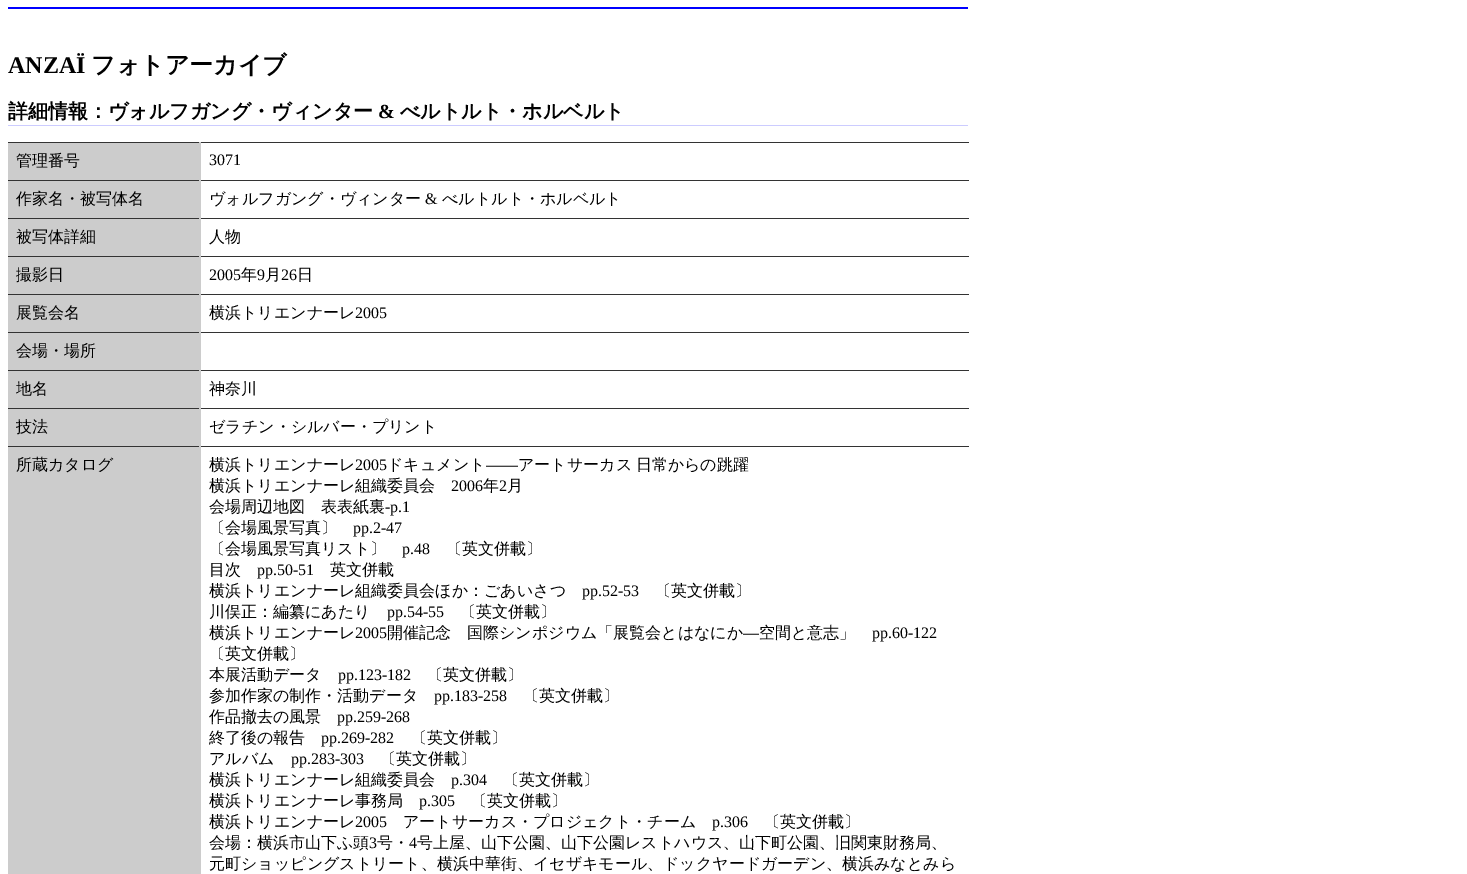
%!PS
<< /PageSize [1467 874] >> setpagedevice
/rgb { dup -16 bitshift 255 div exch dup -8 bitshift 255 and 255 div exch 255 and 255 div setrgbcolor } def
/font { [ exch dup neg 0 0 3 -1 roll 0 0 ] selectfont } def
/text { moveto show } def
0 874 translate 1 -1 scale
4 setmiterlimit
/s1 { /LiberationSerif-Bold 24 font 16#000000 rgb } def
/s2 { /WenQuanYiZenHei-Bold 24 font 16#000000 rgb } def
/s3 { /WenQuanYiZenHei-Bold 20 font 16#000000 rgb } def
/s4 { /LiberationSerif-Bold 20 font 16#000000 rgb } def
/s5 { /WenQuanYiZenHei-Medium 16 font 16#000000 rgb } def
/s6 { /LiberationSerif-Regular 16 font 16#000000 rgb } def
16#FFFFFF rgb
0 0 1467 874 rectfill
16#0000FF rgb
8 7 960 2 rectfill
s1
(ANZAÏ) 8 73 text
s2
(フォトアーカイブ) 91 73 text
16#CCCCFF rgb
8 125 960 1 rectfill
s3
(詳細情報：ヴォルフガング・ヴィンター) 8 118 text
s4
(&) 378 118 text
s3
(べルトルト・ホルベルト) 400 118 text
16#CCCCCC rgb
8 143 191 731 rectfill
16#333333 rgb
8 142 961 1 rectfill
8 180 961 1 rectfill
8 218 961 1 rectfill
8 256 961 1 rectfill
8 294 961 1 rectfill
8 332 961 1 rectfill
8 370 961 1 rectfill
8 408 961 1 rectfill
8 446 961 1 rectfill
16#CCCCCC rgb
199 142 2 732 rectfill
s5
(管理番号) 16 166 text
s6
(3071) 209 165 text
s5
(作家名・被写体名) 16 204 text
(ヴォルフガング・ヴィンター) 209 204 text
s6
(&) 425 204 text
s5
(べルトルト・ホルベルト) 442 204 text
(被写体詳細) 16 242 text
(人物) 209 242 text
(撮影日) 16 280 text
s6
(2005) 209 280 text
s5
(年) 241 280 text
s6
(9) 257 280 text
s5
(月) 265 280 text
s6
(26) 281 280 text
s5
(日) 297 280 text
(展覧会名) 16 318 text
(横浜トリエンナーレ) 209 318 text
s6
(2005) 355 318 text
s5
(会場・場所) 16 356 text
(地名) 16 394 text
(神奈川) 209 394 text
(技法) 16 432 text
(ゼラチン・シルバー・プリント) 209 432 text
(所蔵カタログ) 16 470 text
(横浜トリエンナーレ) 209 470 text
s6
(2005) 355 470 text
s5
(ドキュメント) 387 470 text
s6
(――) 486 470 text
/WenQuanYiZenHei-Medium 16 font
518 470 moveto -1 0 32 (アートサーカス 日常からの跳躍) widthshow
(横浜トリエンナーレ組織委員会) 209 491 text
s6
(2006) 451 491 text
s5
(年) 483 491 text
s6
(2) 499 491 text
s5
(月) 507 491 text
(会場周辺地図　表表紙裏) 209 512 text
s6
(-p.1) 385 512 text
s5
(〔会場風景写真〕) 209 533 text
s6
(pp.2-47) 353 533 text
s5
(〔会場風景写真リスト〕) 209 554 text
s6
(p.48) 402 554 text
s5
(〔英文併載〕) 446 554 text
(目次) 209 575 text
s6
(pp.50-51) 257 575 text
s5
(英文併載) 330 575 text
(横浜トリエンナーレ組織委員会ほか：ごあいさつ) 209 596 text
s6
(pp.52-53) 582 596 text
s5
(〔英文併載〕) 655 596 text
(川俣正：編纂にあたり) 209 617 text
s6
(pp.54-55) 387 617 text
s5
(〔英文併載〕) 460 617 text
(横浜トリエンナーレ) 209 638 text
s6
(2005) 355 638 text
s5
(開催記念　国際シンポジウム「展覧会とはなにか) 387 638 text
s6
(―) 743 638 text
s5
(空間と意志」) 759 638 text
s6
(pp.60-122) 872 638 text
s5
(〔英文併載〕) 209 659 text
(本展活動データ) 209 680 text
s6
(pp.123-182) 338 680 text
s5
(〔英文併載〕) 427 680 text
(参加作家の制作・活動データ) 209 701 text
s6
(pp.183-258) 434 701 text
s5
(〔英文併載〕) 523 701 text
(作品撤去の風景) 209 722 text
s6
(pp.259-268) 337 722 text
s5
(終了後の報告) 209 743 text
s6
(pp.269-282) 321 743 text
s5
(〔英文併載〕) 411 743 text
(アルバム) 209 764 text
s6
(pp.283-303) 291 764 text
s5
(〔英文併載〕) 380 764 text
(横浜トリエンナーレ組織委員会) 209 785 text
s6
(p.304) 451 785 text
s5
(〔英文併載〕) 503 785 text
(横浜トリエンナーレ事務局) 209 806 text
s6
(p.305) 419 806 text
s5
(〔英文併載〕) 471 806 text
(横浜トリエンナーレ) 209 827 text
s6
(2005) 355 827 text
s5
(アートサーカス・プロジェクト・チーム) 403 827 text
s6
(p.306) 712 827 text
s5
(〔英文併載〕) 764 827 text
(会場：横浜市山下ふ頭) 209 848 text
s6
(3) 369 848 text
s5
(号・) 377 848 text
s6
(4) 409 848 text
s5
(号上屋、山下公園、山下公園レストハウス、山下町公園、旧関東財務局、) 417 848 text
(元町ショッピングストリート、横浜中華街、イセザキモール、ドックヤードガーデン、横浜みなとみら) 209 869 text
showpage
